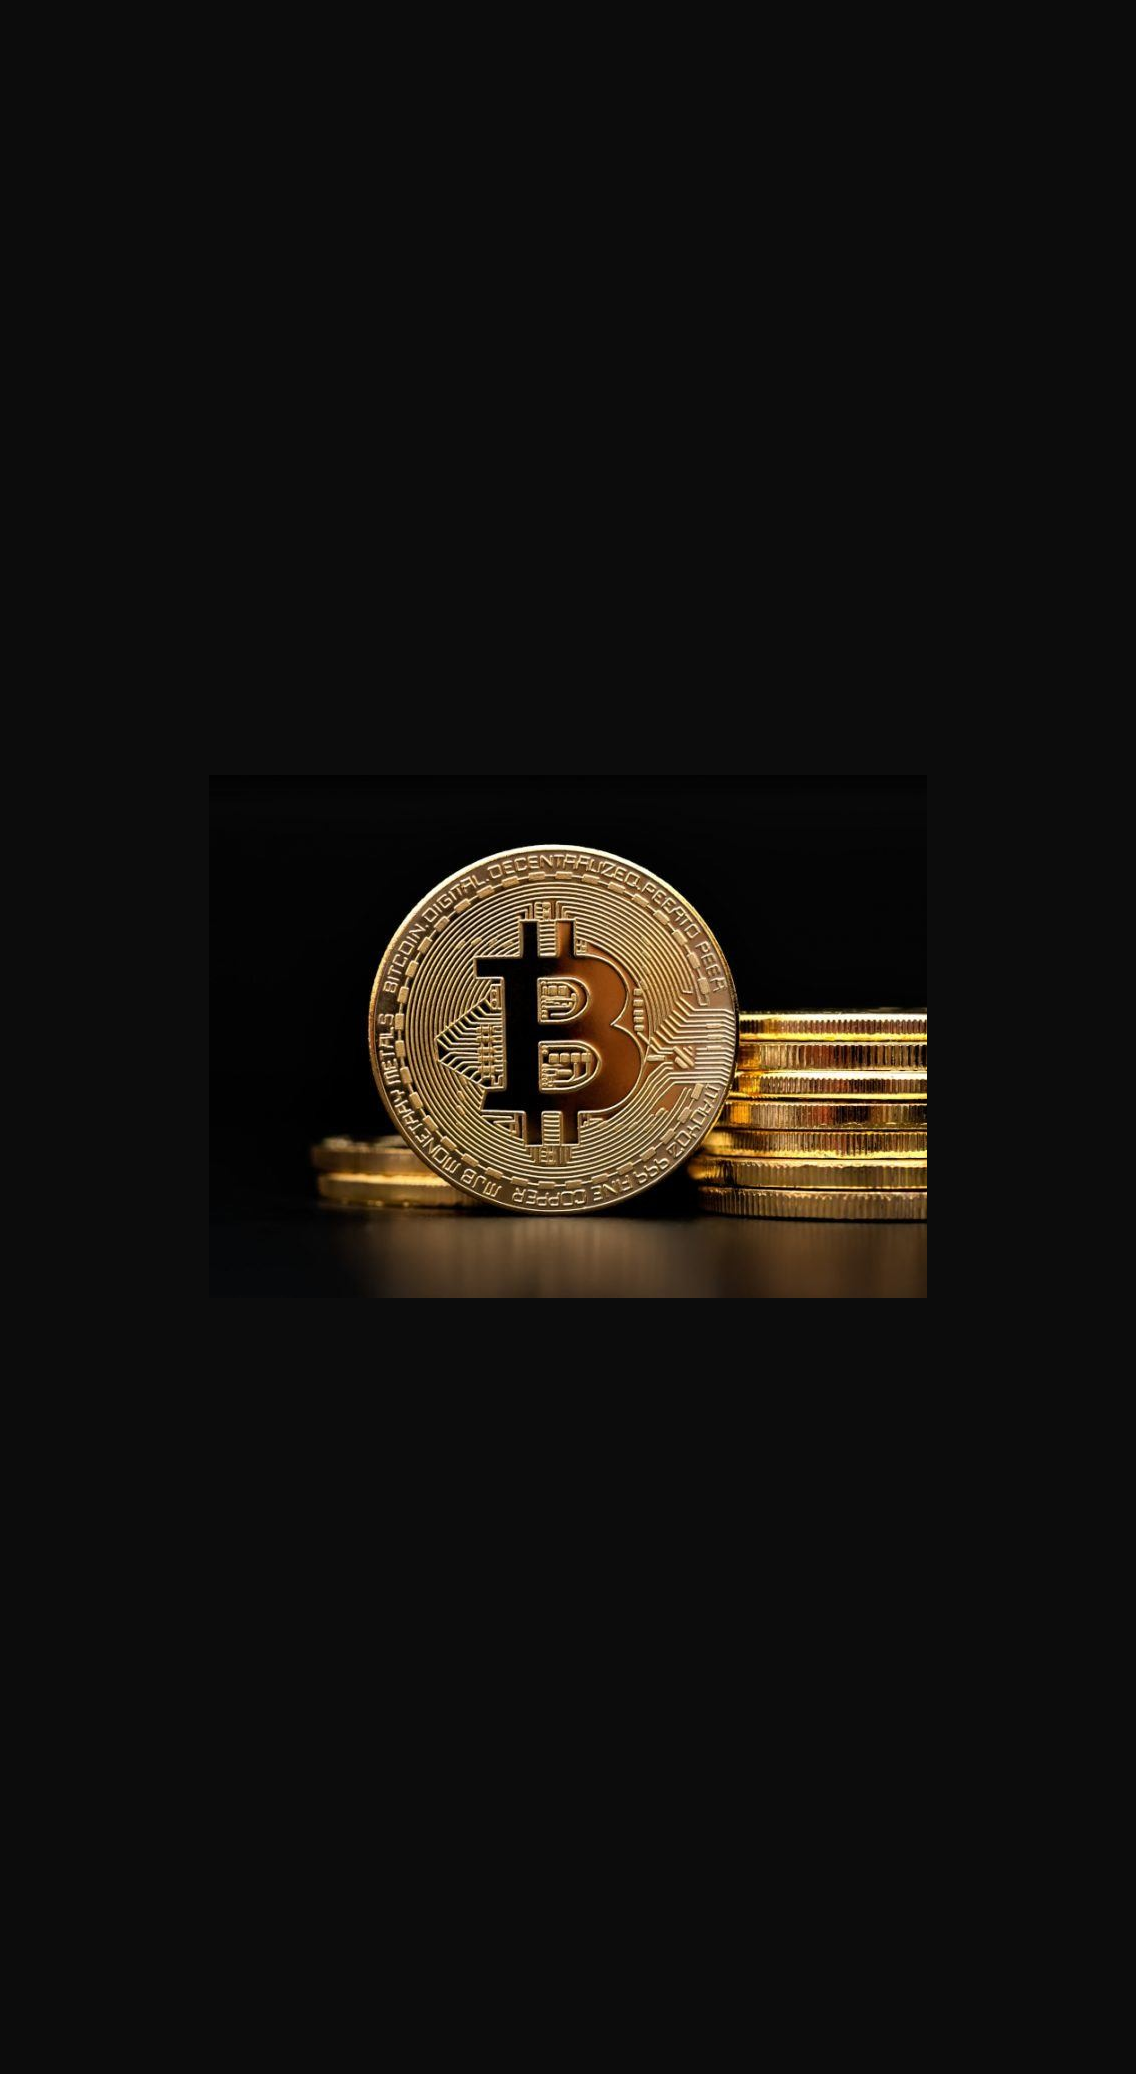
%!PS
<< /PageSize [1136 2074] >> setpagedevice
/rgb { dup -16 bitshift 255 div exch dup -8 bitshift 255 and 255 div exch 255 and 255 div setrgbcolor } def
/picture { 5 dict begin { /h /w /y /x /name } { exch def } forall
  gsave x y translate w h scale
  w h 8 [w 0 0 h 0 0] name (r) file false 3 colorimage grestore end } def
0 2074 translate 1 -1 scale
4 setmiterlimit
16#0C0C0C rgb
0 0 1136 2074 rectfill
(pic1.raw) 209 775 718 523 picture
showpage
